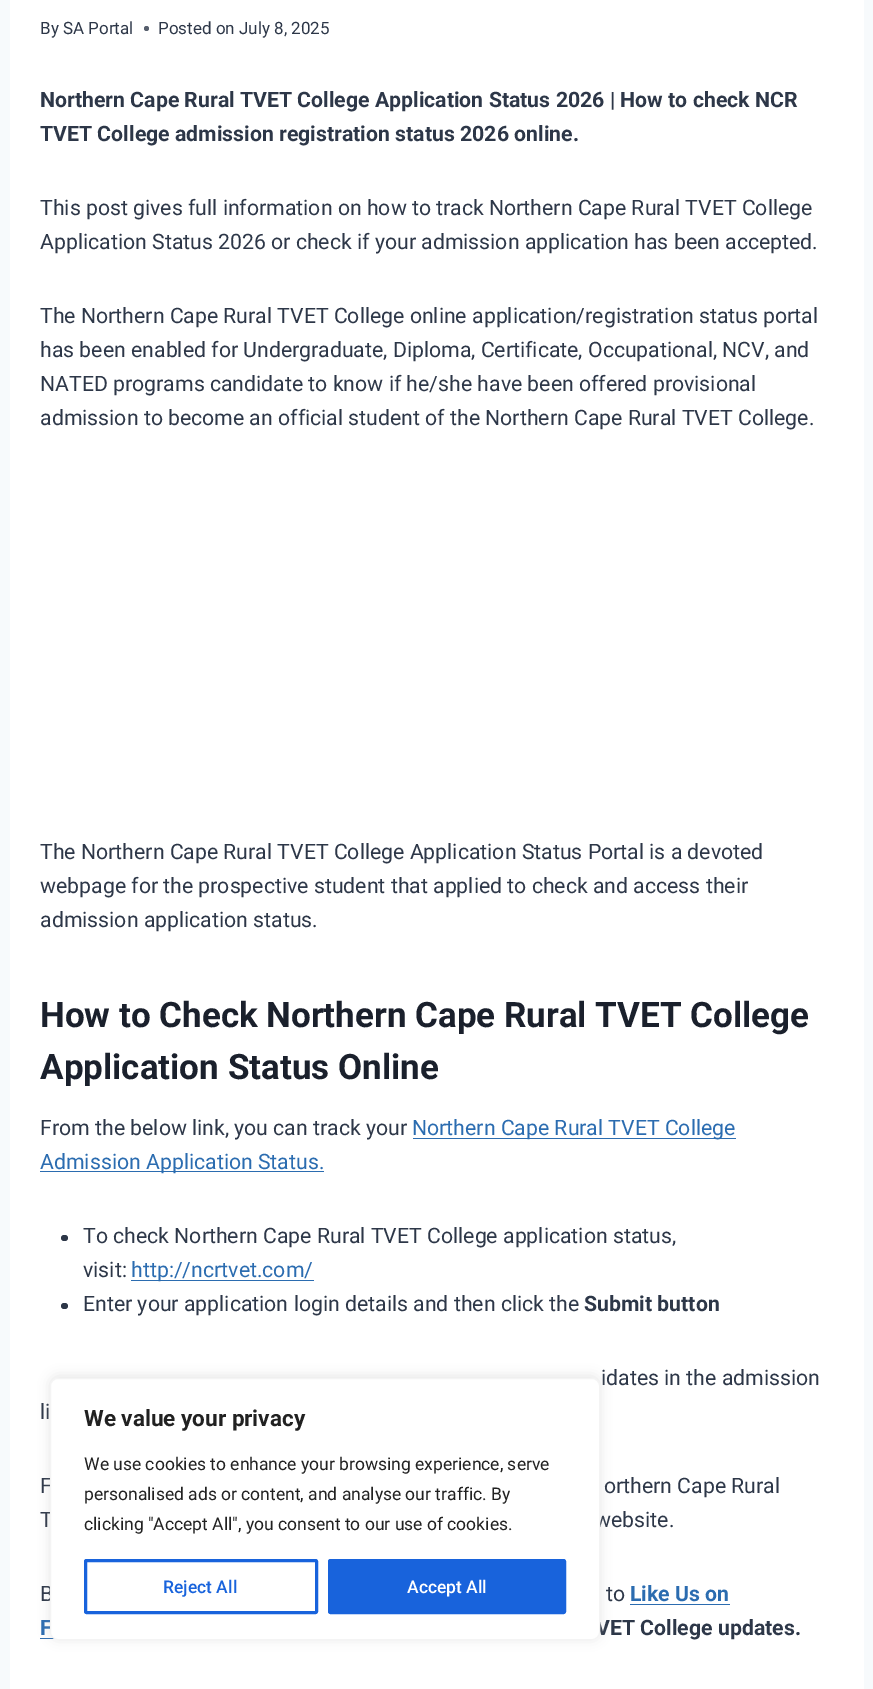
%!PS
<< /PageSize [873 1689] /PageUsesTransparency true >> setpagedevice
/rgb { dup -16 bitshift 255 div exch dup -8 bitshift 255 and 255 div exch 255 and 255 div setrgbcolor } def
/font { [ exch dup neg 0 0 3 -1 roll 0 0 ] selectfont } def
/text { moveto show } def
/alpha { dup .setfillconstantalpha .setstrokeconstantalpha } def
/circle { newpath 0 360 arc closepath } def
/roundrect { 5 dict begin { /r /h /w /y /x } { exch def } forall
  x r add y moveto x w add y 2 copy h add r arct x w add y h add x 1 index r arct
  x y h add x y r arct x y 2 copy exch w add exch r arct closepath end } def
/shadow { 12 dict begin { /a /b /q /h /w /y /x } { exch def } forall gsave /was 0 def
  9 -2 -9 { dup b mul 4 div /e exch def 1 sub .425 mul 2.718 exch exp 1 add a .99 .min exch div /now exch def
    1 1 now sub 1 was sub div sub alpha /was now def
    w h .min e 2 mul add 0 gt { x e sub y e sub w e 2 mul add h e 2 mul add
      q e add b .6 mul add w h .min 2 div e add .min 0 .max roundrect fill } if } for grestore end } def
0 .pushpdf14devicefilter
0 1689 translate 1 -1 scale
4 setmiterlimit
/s1 { /Roboto-Regular 17 font 16#2D3748 rgb } def
/s2 { /Roboto-Bold 21.25 font 16#2D3748 rgb } def
/s3 { /Roboto-Regular 21.25 font 16#2D3748 rgb } def
/s4 { /Roboto-Bold 35 font 16#1A202C rgb } def
/s5 { /Roboto-Regular 21.25 font 16#2B6CB0 rgb } def
/s6 { /Roboto-Bold 21.25 font 16#2B6CB0 rgb } def
/s7 { /Roboto-Bold 22.5 font 16#212121 rgb } def
/s8 { /Roboto-Regular 17.5 font 16#212121 rgb } def
/s9 { /Roboto-Medium 17.5 font 16#1863DC rgb } def
/s10 { /Roboto-Medium 17.5 font 16#FFFFFF rgb } def
16#F7FAFC rgb
0 0 873 1689 rectfill
16#FFFFFF rgb
10 0 854 1689 rectfill
s1
(By SA Portal) 40 34 text
16#575F6D rgb
146.5 28.5 2.5 circle fill
s1
(Posted on July 8, 2025) 158 34 text
s2
(Northern Cape Rural TVET College Application Status 2026 | How to check NCR) 40 107 text
(TVET College admission registration status 2026 online.) 40 141 text
s3
(This post gives full information on how to track Northern Cape Rural TVET College) 40 215 text
(Application Status 2026 or check if your admission application has been accepted.) 40 249 text
(The Northern Cape Rural TVET College online application/registration status portal) 40 323 text
(has been enabled for Undergraduate, Diploma, Certificate, Occupational, NCV, and) 40 357 text
(NATED programs candidate to know if he/she have been offered provisional) 40 391 text
(admission to become an official student of the Northern Cape Rural TVET College.) 40 425 text
(The Northern Cape Rural TVET College Application Status Portal is a devoted) 40 859 text
(webpage for the prospective student that applied to check and access their) 40 893 text
(admission application status.) 40 927 text
s4
(How to Check Northern Cape Rural TVET College) 40 1027 text
(Application Status Online) 40 1079 text
s3
(From the below link, you can track your) 40 1135 text
16#2B6CB0 rgb
413 1138 323 1 rectfill
(Northern Cape Rural TVET College) 412 1135 text
40 1171 284 1 rectfill
(Admission Application Status.) 40 1169 text
16#2D3748 rgb
61 1235 7 6 3 roundrect fill
(To check Northern Cape Rural TVET College application status,) 83 1243 text
(visit:) 83 1277 text
16#2B6CB0 rgb
131 1280 183 1 rectfill
(http://ncrtvet.com/) 131 1277 text
16#2D3748 rgb
61 1303 7 6 3 roundrect fill
(Enter your application login details and then click the) 83 1311 text
s2
(Submit button) 584 1311 text
s3
(idates in the admission) 601 1385 text
(li) 40 1419 text
(F) 40 1493 text
(orthern Cape Rural) 604 1493 text
(T) 40 1527 text
(website.) 595 1527 text
(B) 40 1601 text
(to) 606 1601 text
s6
(Like Us on) 630 1601 text
630 1604 100 1 rectfill
(F) 40 1635 text
40 1638 15 1 rectfill
s2
(VET College updates.) 596 1635 text
16#ACABAB rgb
50 1376 550 263 8 6 0.3 shadow
16#FFFFFF rgb
50.5 1378.5 549 261 7.5 roundrect gsave fill grestore
16#F4F4F4 rgb
stroke
s7
(We value your privacy) 84 1426 text
s8
(We use cookies to enhance your browsing experience, serve) 84 1470 text
(personalised ads or content, and analyse our traffic. By) 84 1500 text
(clicking "Accept All", you consent to our use of cookies.) 84 1530 text
16#1863DC rgb
3 setlinewidth
85.5 1560.5 231 52 1 roundrect stroke
s9
(Reject All) 163 1593 text
329.5 1560.5 235 52 1 roundrect gsave fill grestore
stroke
s10
(Accept All) 407 1593 text
.poppdf14devicefilter showpage
